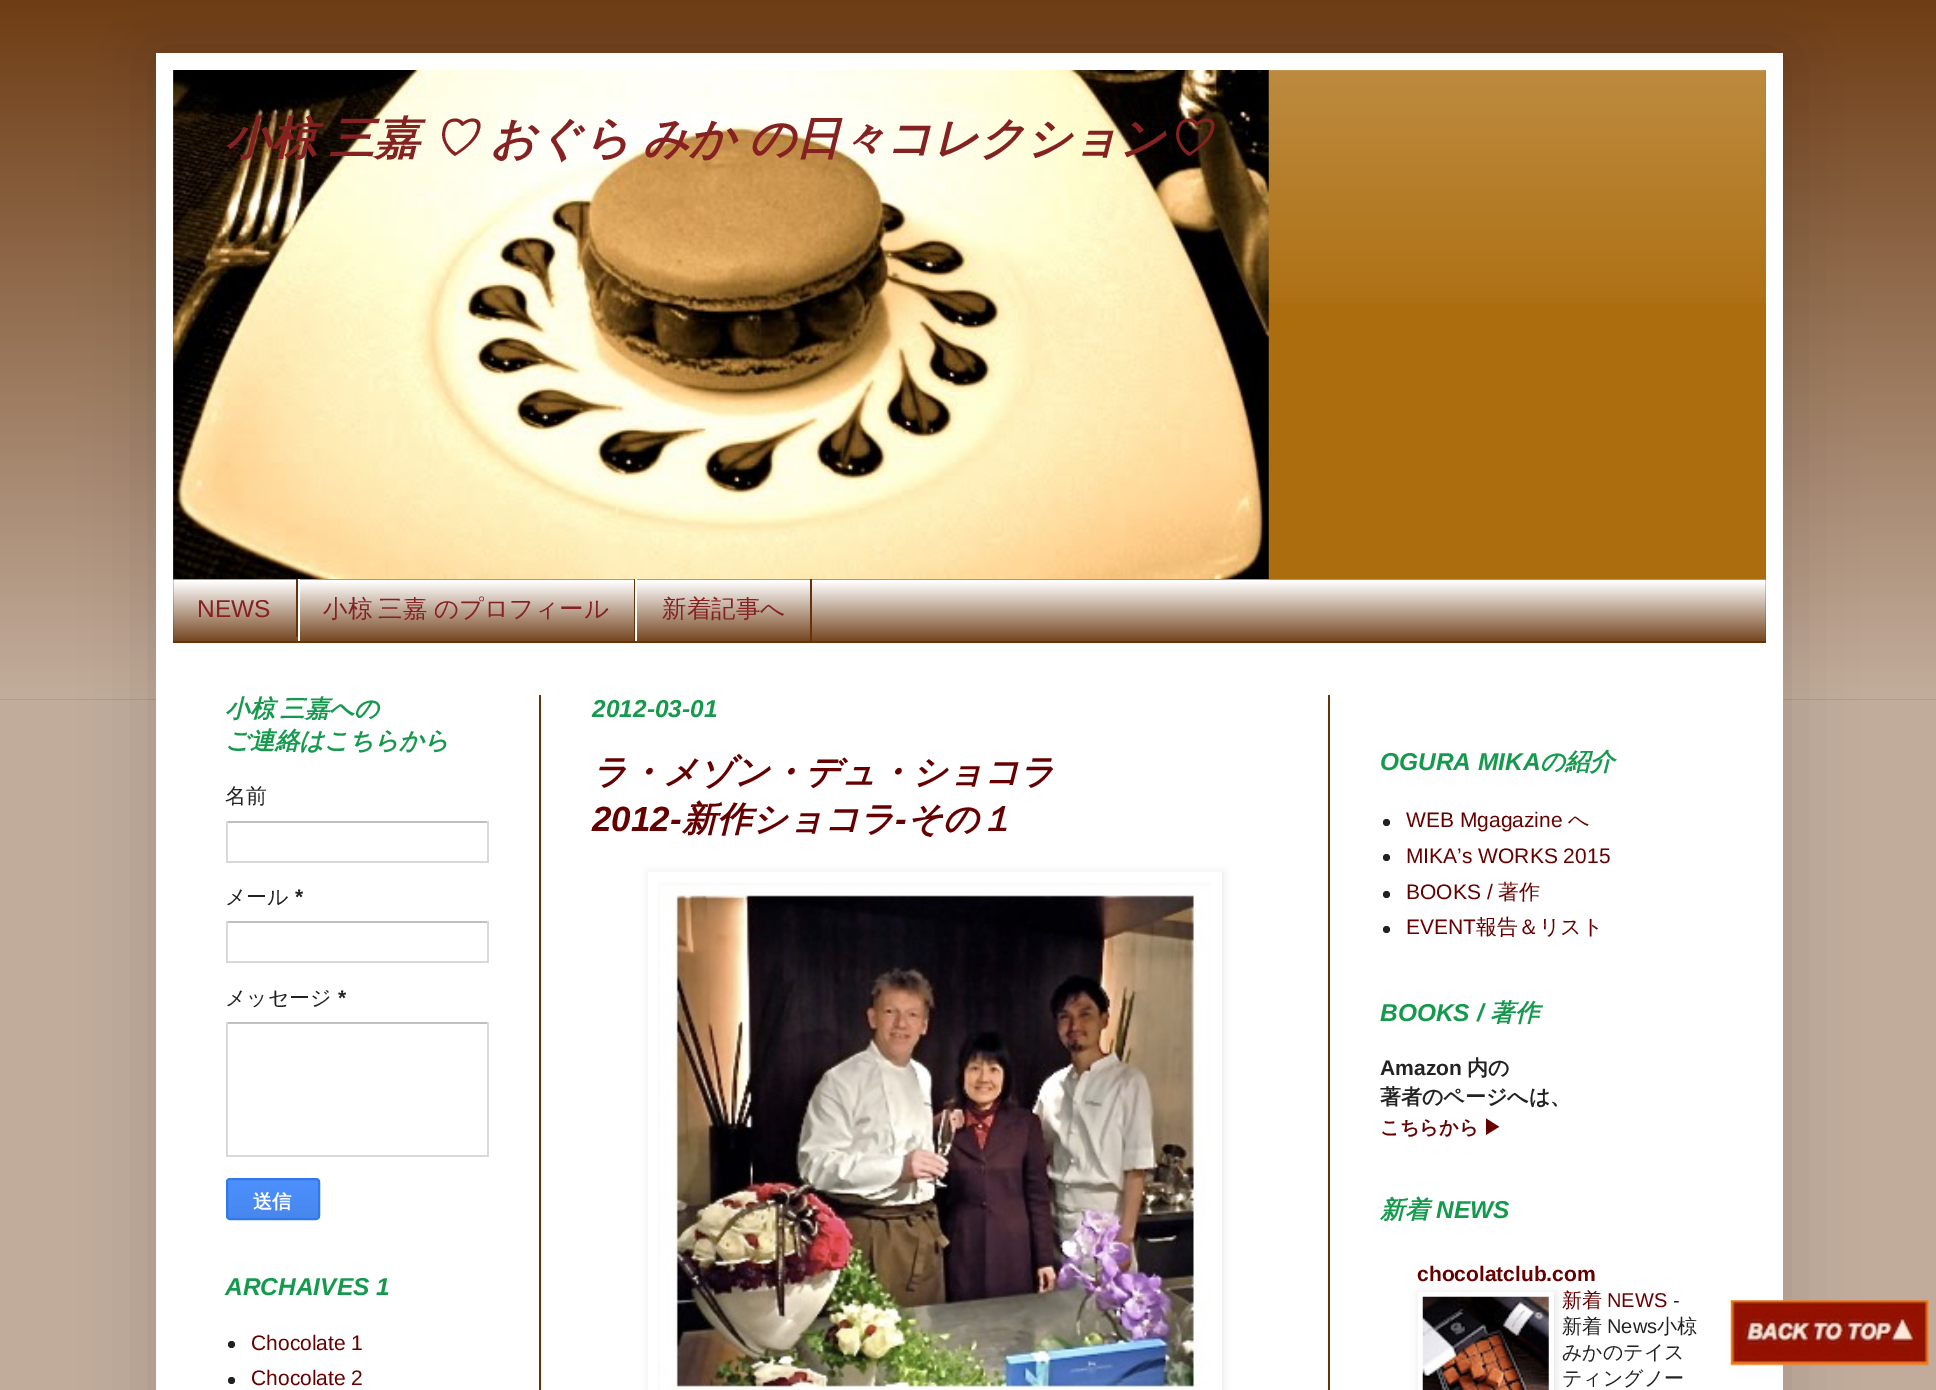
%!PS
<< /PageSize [1936 1390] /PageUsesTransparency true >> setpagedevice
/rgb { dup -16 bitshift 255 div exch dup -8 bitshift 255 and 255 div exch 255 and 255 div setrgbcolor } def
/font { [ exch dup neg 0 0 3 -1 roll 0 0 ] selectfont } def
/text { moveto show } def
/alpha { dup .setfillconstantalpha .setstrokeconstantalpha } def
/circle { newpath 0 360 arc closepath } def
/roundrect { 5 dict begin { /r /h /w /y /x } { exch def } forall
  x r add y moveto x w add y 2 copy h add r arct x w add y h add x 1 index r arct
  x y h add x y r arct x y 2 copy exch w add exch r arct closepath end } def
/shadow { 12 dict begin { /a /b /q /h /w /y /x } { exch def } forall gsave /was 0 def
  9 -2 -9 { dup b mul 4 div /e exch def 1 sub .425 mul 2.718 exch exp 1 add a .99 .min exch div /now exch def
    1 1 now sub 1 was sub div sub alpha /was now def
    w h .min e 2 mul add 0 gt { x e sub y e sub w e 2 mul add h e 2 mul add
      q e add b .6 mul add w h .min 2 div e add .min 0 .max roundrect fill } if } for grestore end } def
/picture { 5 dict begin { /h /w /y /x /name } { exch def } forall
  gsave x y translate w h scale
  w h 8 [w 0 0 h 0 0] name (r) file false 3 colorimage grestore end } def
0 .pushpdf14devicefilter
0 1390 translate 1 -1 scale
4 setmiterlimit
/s1 { /LiberationSans-Regular 24.5 font 16#852121 rgb } def
/s2 { /WenQuanYiZenHei-Medium 24.5 font 16#852121 rgb } def
/s3 { /WenQuanYiZenHei-BoldItalic 24.5 font 16#15994D rgb } def
/s4 { /WenQuanYiZenHei-Medium 21 font 16#222222 rgb } def
/s5 { /LiberationSans-Bold 21 font 16#222222 rgb } def
/s6 { /WenQuanYiZenHei-Bold 19.25 font 16#FFFFFF rgb } def
/s7 { /LiberationSans-BoldItalic 24.5 font 16#15994D rgb } def
/s8 { /LiberationSans-Regular 21 font 16#660000 rgb } def
/s9 { /WenQuanYiZenHei-BoldItalic 35 font 16#660000 rgb } def
/s10 { /LiberationSans-BoldItalic 35 font 16#660000 rgb } def
/s11 { /WenQuanYiZenHei-Medium 21 font 16#660000 rgb } def
/s12 { /WenQuanYiZenHei-Bold 21 font 16#222222 rgb } def
/s13 { /LiberationSans-Bold 21 font 16#660000 rgb } def
/s14 { /WenQuanYiZenHei-Medium 20 font 16#660000 rgb } def
/s15 { /LiberationSans-Regular 20 font 16#660000 rgb } def
/s16 { /LiberationSans-Regular 20 font 16#222222 rgb } def
/s17 { /WenQuanYiZenHei-Medium 20 font 16#222222 rgb } def
16#C1AC9C rgb
0 0 1936 1390 rectfill
16#663208 rgb
0 0 1936 700 rectfill
(pic1.raw) 0 0 1936 700 picture
16#000000 rgb
156 53 1627 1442 0 35 0.15 shadow
16#FFFFFF rgb
156 53 1627 1337 rectfill
16#AC6D0F rgb
173 70 1593 509 rectfill
(pic2.raw) 173 70 1593 233 picture
(pic3.raw) 173 70 1096 509 picture
/WenQuanYiZenHei-BoldItalic 45.5 font
16#852121 rgb
225 154 moveto -1 0 32 (小椋 三嘉 ♡ おぐら みか の日々コレクション♡) widthshow
16#663208 rgb
173 579 1593 64 rectfill
(pic4.raw) 173 579 1593 62 picture
296 579 2 58 rectfill
s1
(NEWS) 197 617 text
16#663208 rgb
634 579 1 62 rectfill
16#FFFFFF rgb
298 579 2 62 rectfill
/WenQuanYiZenHei-Medium 24.5 font
16#852121 rgb
323 617 moveto -1 0 32 (小椋 三嘉 のプロフィール) widthshow
16#663208 rgb
810 579 2 62 rectfill
16#FFFFFF rgb
635 579 2 62 rectfill
s2
(新着記事へ) 662 617 text
16#663208 rgb
539 695 2 695 rectfill
1328 695 2 695 rectfill
/WenQuanYiZenHei-BoldItalic 24.5 font
16#15994D rgb
225 717 moveto -1 0 32 (小椋 三嘉への) widthshow
(ご連絡はこちらから) 225 749 text
s4
(名前) 225 803 text
16#C0C0C0 rgb
226 821 262 2 rectfill
16#D9D9D9 rgb
487 821 2 42 rectfill
226 861 262 2 rectfill
226 821 2 42 rectfill
s4
(メール) 225 904 text
s5
(*) 295 904 text
16#C0C0C0 rgb
226 921 262 2 rectfill
16#D9D9D9 rgb
487 921 2 42 rectfill
226 961 262 2 rectfill
226 921 2 42 rectfill
s4
(メッセージ) 225 1005 text
s5
(*) 338 1005 text
16#C0C0C0 rgb
226 1022 262 2 rectfill
16#D9D9D9 rgb
487 1022 2 135 rectfill
226 1155 262 2 rectfill
226 1022 2 135 rectfill
gsave
226 1178 94 42 4 roundrect clip newpath
gsave 226 1180 moveto 320 1180 lineto 320 1218 lineto 226 1218 lineto closepath clip newpath
<< /ShadingType 2 /ColorSpace /DeviceRGB /Coords [273 1180 273 1218] /Extend [true true] /Function << /FunctionType 2 /Domain [0 1] /C0 [0.302 0.565 0.996] /C1 [0.278 0.529 0.929] /N 1 >> >> shfill grestore
grestore
16#3079ED rgb
2 setlinewidth
227 1179 92 40 3 roundrect stroke
s6
(送信) 253 1208 text
s7
(ARCHAIVES 1) 225 1295 text
16#222222 rgb
231.5 1344.5 3.5 circle fill
s8
(Chocolate 1) 251 1350 text
16#222222 rgb
231.5 1380.5 3.5 circle fill
s8
(Chocolate 2) 251 1385 text
s7
(2012-03-01) 592 717 text
s9
(ラ・メゾン・デュ・ショコラ) 592 784 text
s10
(2012-) 592 831 text
s9
(新作ショコラ) 682 831 text
s10
(-) 895 831 text
s9
(その１) 907 831 text
16#000000 rgb
649 873 574 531 0 4.5 0.1 shadow
16#FFFFFF rgb
648 872 574 518 rectfill
(pic5.raw) 658 882 553 508 picture
s7
(OGURA MIKA) 1380 770 text
s3
(の紹介) 1540 770 text
16#222222 rgb
1386.5 822.5 3.5 circle fill
s8
(WEB Mgagazine) 1406 827 text
s11
(へ) 1568 827 text
16#222222 rgb
1386.5 857.5 3.5 circle fill
s8
(MIKA’s WORKS 2015) 1406 863 text
16#222222 rgb
1386.5 894.5 3.5 circle fill
s8
(BOOKS /) 1406 899 text
s11
(著作) 1498 899 text
16#222222 rgb
1386.5 929.5 3.5 circle fill
s8
(EVENT) 1406 934 text
s11
(報告＆リスト) 1476 934 text
s7
(BOOKS /) 1380 1021 text
s3
(著作) 1490 1021 text
s5
(Amazon) 1380 1075 text
s12
(内の) 1467 1075 text
(著者のページへは、) 1380 1104 text
/WenQuanYiZenHei-Bold 19.25 font
16#660000 rgb
1380 1134 moveto -1 0 32 (こちらから ▶) widthshow
s3
(新着) 1380 1218 text
s7
(NEWS) 1436 1218 text
s13
(chocolatclub.com) 1417 1281 text
gsave
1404 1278 moveto 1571 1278 lineto 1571 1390 lineto 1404 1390 lineto closepath 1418 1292 moveto 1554 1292 lineto 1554 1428 lineto 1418 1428 lineto closepath eoclip newpath
16#000000 rgb
1419 1293 137 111 0 4.5 0.1 shadow
grestore
(pic6.raw) 1422 1296 127 94 picture
s14
(新着) 1562 1307 text
s15
(NEWS) 1607 1307 text
s16
(-) 1673 1307 text
s17
(新着) 1562 1333 text
s16
(News) 1607 1333 text
s17
(小椋) 1657 1333 text
(みかのテイス) 1562 1359 text
(ティングノー) 1562 1385 text
(pic7.raw) 1730 1300 199 66 picture
.poppdf14devicefilter showpage
